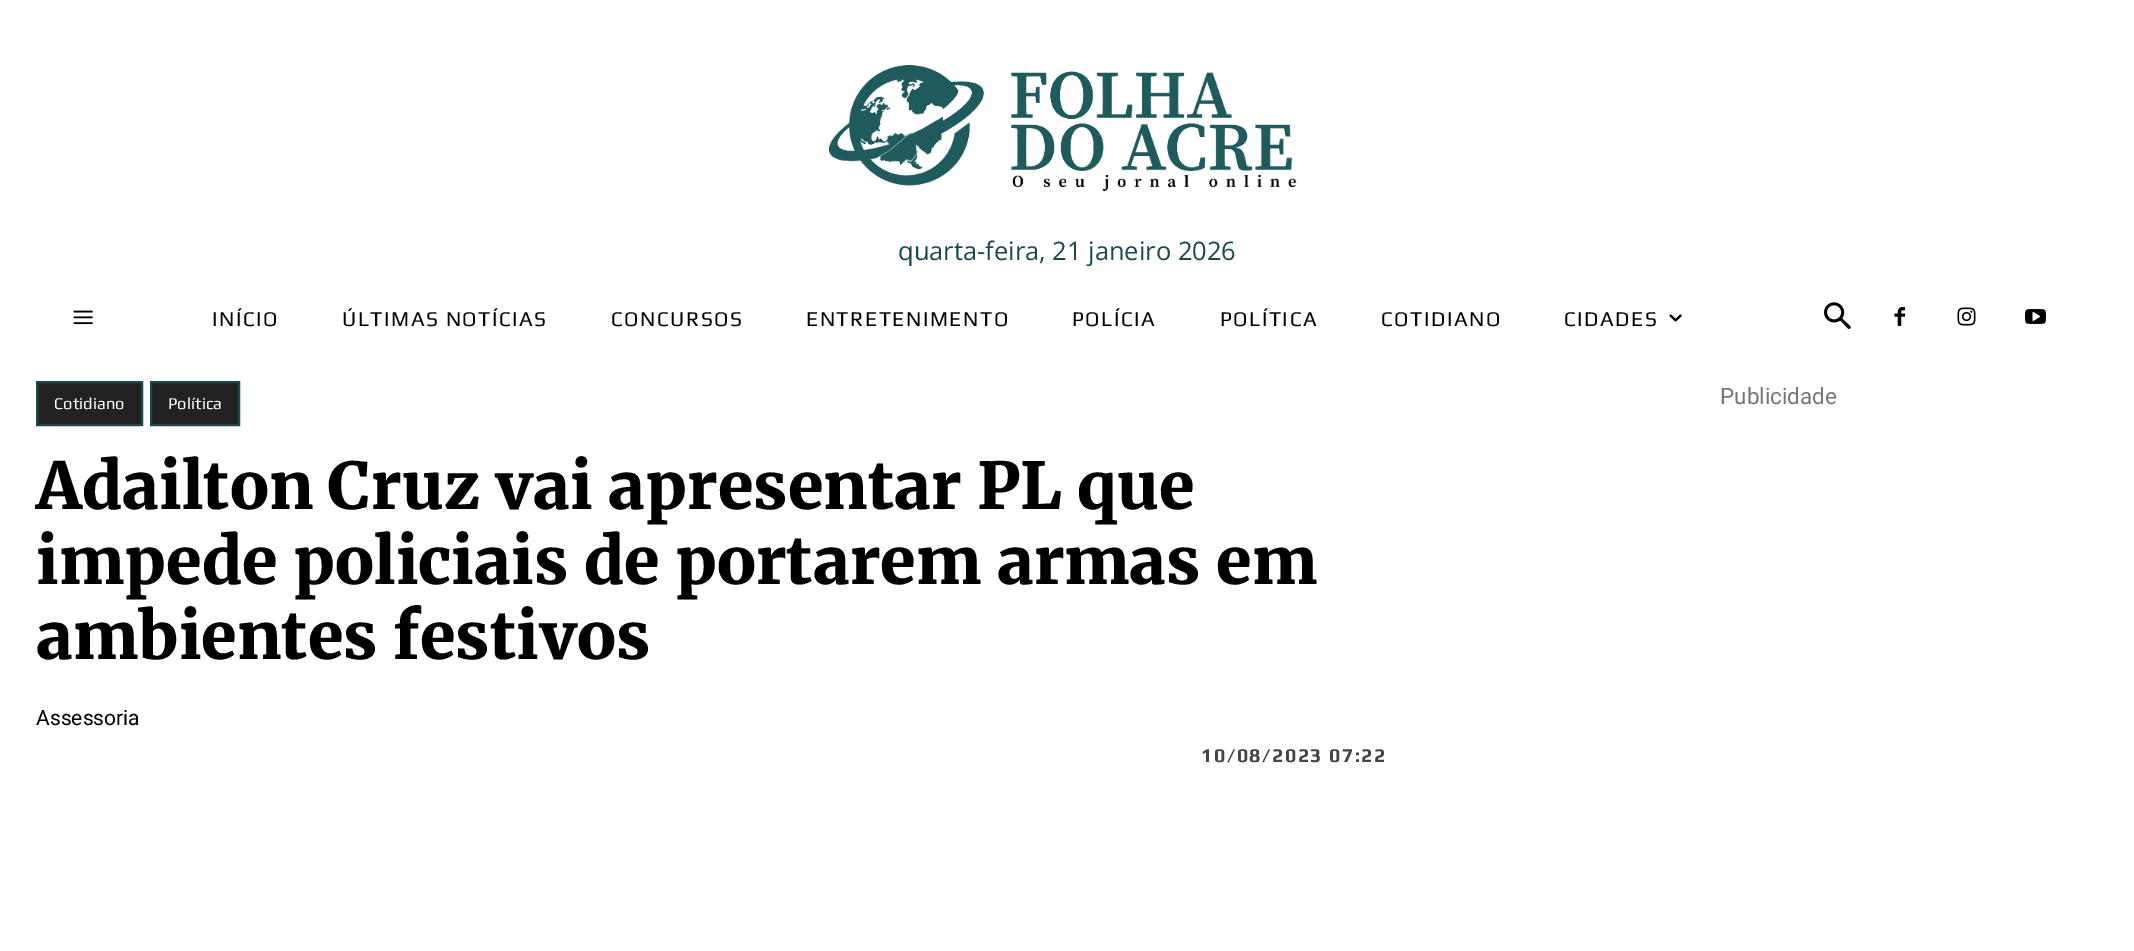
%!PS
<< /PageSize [2134 951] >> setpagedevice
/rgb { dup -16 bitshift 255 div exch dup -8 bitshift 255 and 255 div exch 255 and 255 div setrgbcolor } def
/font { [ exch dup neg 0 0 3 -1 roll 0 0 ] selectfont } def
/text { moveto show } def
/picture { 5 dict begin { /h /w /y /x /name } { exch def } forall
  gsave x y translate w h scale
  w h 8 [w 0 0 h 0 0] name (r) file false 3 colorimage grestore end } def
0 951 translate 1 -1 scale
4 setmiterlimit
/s1 { /OpenSans-Regular 25.5 font 16#1A494B rgb } def
/s2 { /Play-Regular 16.5 font 16#FFFFFF rgb } def
/s3 { /Merriweather-Black 64.5 font 16#000000 rgb } def
/s4 { /Roboto-Regular 21 font 16#000000 rgb } def
/s5 { /Roboto-Regular 22.5 font 16#767676 rgb } def
16#FFFFFF rgb
0 0 2134 951 rectfill
(pic1.raw) 828 65 469 127 picture
s1
(quarta-feira, 21 janeiro 2026) 898 260 text
(pic2.raw) 73 310 20 15 picture
/Play-Regular 21 font
16#000000 rgb
212 326 moveto 1.5 0 (INÍCIO) ashow
342 326 moveto 1.5 0 (ÚLTIMAS NOTÍCIAS) ashow
611 326 moveto 1.5 0 (CONCURSOS) ashow
806 326 moveto 1.5 0 (ENTRETENIMENTO) ashow
1072 326 moveto 1.5 0 (POLÍCIA) ashow
1220 326 moveto 1.5 0 (POLÍTICA) ashow
1381 326 moveto 1.5 0 (COTIDIANO) ashow
1564 326 moveto 1.5 0 (CIDADES) ashow
(pic3.raw) 1669 314 13 8 picture
(pic4.raw) 1824 302 27 27 picture
(pic5.raw) 1894 307 11 19 picture
(pic6.raw) 1957 307 19 19 picture
(pic7.raw) 2025 309 21 15 picture
16#222222 rgb
37 382 moveto 142 382 lineto 142 425 lineto 37 425 lineto closepath gsave fill grestore
16#1A494B rgb
2 setlinewidth
stroke
s2
(Cotidiano) 54 409 text
16#222222 rgb
151 382 moveto 239 382 lineto 239 425 lineto 151 425 lineto closepath gsave fill grestore
16#1A494B rgb
stroke
s2
(Política) 168 409 text
s3
(Adailton Cruz vai apresentar PL que) 36 509 text
(impede policiais de portarem armas em) 36 584 text
(ambientes festivos) 36 659 text
s4
(Assessoria) 36 725 text
/Play-Bold 19.5 font
16#444444 rgb
1201 762 moveto 1.5 0 (10/08/2023 07:22) ashow
s5
(Publicidade) 1720 404 text
showpage
